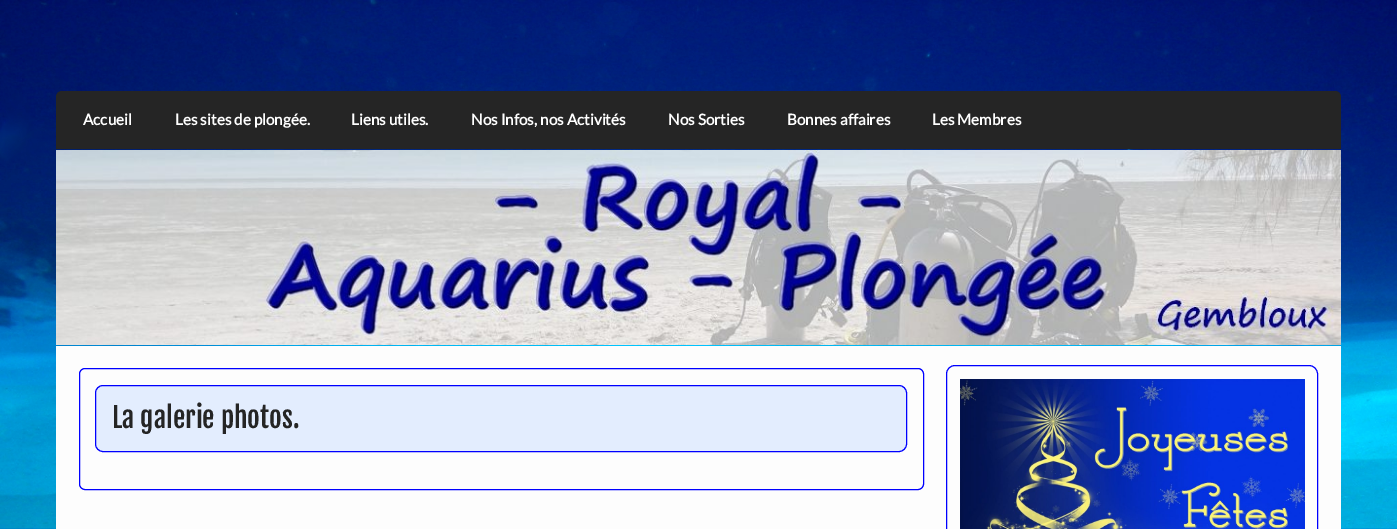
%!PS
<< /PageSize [1397 529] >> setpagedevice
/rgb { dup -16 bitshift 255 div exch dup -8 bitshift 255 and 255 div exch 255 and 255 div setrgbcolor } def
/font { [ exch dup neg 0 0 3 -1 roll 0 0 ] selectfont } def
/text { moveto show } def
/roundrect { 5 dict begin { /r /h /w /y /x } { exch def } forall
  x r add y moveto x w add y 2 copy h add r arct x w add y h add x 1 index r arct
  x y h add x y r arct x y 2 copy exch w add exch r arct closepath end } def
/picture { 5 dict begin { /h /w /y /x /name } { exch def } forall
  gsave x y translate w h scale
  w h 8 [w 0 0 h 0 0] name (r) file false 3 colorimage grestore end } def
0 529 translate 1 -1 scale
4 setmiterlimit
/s1 { /Lato-Bold 15.25 font 16#FFFFFF rgb } def
/s2 { /FjallaOne-Regular 27.5 font 16#252525 rgb } def
16#FFFFFF rgb
0 0 1397 529 rectfill
(pic1.raw) 0 0 1397 529 picture
16#252525 rgb
62 91 moveto 1335 91 lineto 1338.5 91 1341 93.5 1341 97 curveto 1341 149 lineto 56 149 lineto 56 97 lineto 56 93.5 58.5 91 62 91 curveto closepath fill
s1
(Accueil) 83 125 text
(Les sites de plongée.) 175 125 text
(Liens utiles.) 351 125 text
(Nos Infos, nos Activités) 471 125 text
(Nos Sorties) 668 125 text
(Bonnes affaires) 787 125 text
(Les Membres) 932 125 text
(pic2.raw) 56 150 1285 195 picture
16#FDFDFD rgb
56 346 1285 183 rectfill
16#0000FF rgb
79.5 368.5 844 121 5.5 roundrect stroke
16#E3EDFE rgb
95.5 385.5 811 66 7.5 roundrect gsave fill grestore
16#0000FF rgb
stroke
s2
(La galerie photos.) 112 428 text
16#0000FF rgb
946.5 365.5 371 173 8.5 roundrect stroke
(pic3.raw) 960 379 345 150 picture
showpage
